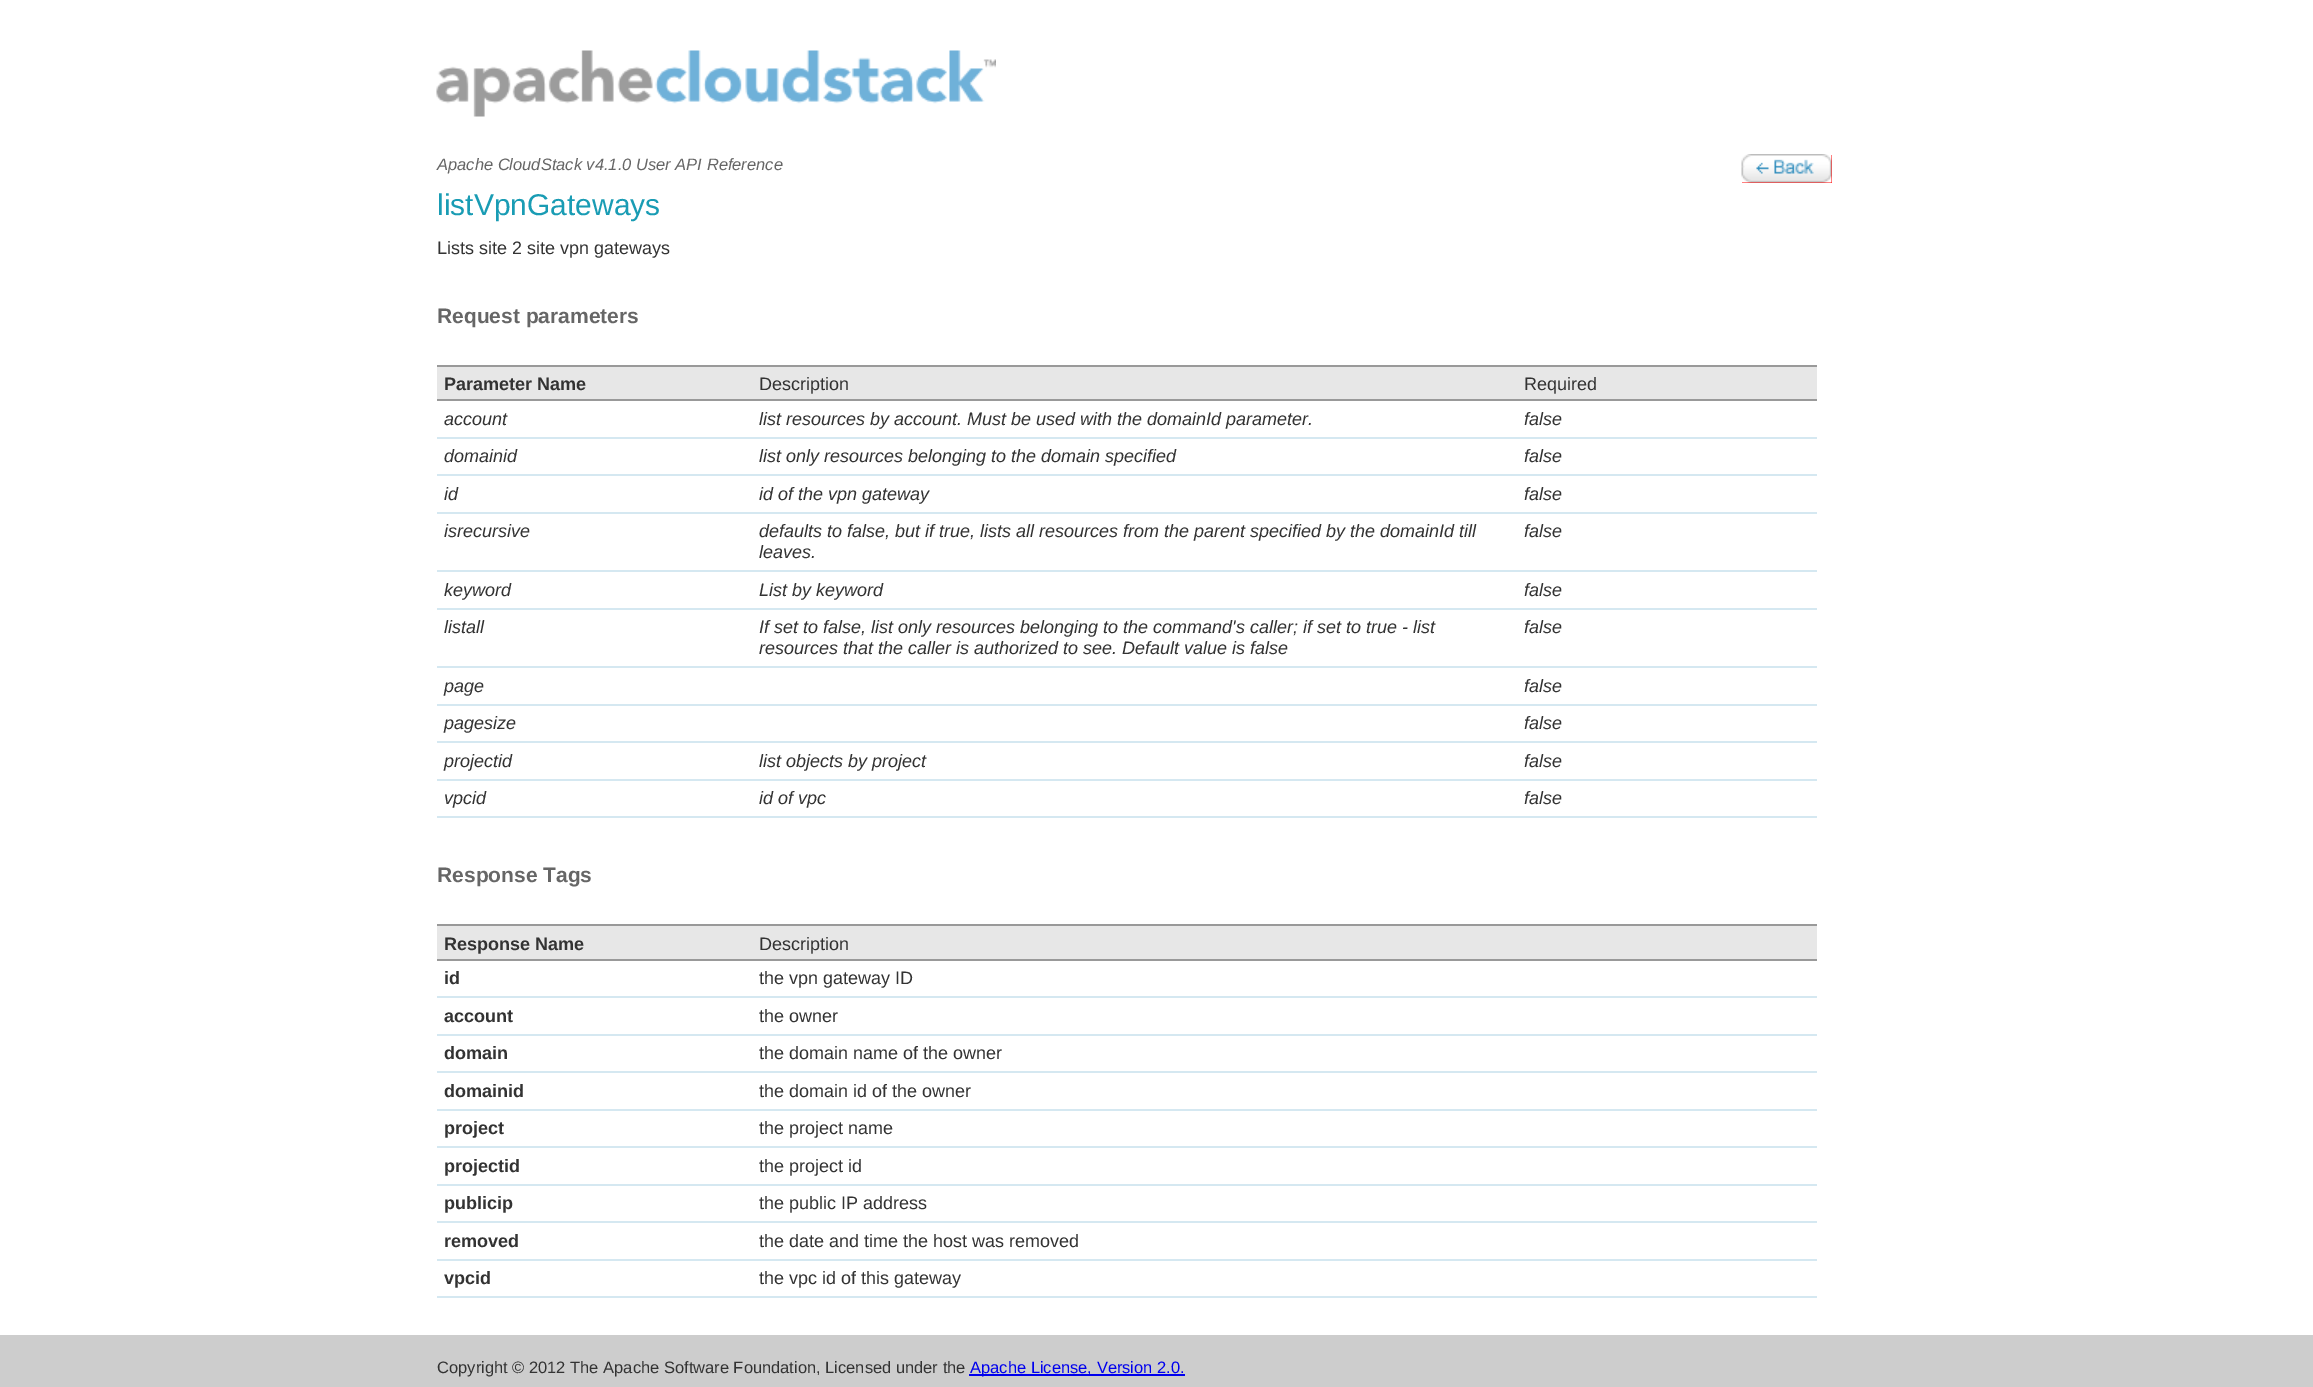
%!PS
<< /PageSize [2313 1387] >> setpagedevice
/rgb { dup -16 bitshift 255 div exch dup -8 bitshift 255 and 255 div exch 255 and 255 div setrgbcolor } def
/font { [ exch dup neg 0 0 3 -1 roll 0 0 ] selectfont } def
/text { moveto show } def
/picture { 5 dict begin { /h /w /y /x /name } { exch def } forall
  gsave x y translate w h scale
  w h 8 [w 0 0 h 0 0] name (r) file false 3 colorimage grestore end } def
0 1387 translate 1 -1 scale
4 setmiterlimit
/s1 { /LiberationSans-Italic 16.5 font 16#666666 rgb } def
/s2 { /LiberationSans-Regular 30 font 16#199CB4 rgb } def
/s3 { /LiberationSans-Regular 18 font 16#333333 rgb } def
/s4 { /LiberationSans-Bold 21 font 16#666666 rgb } def
/s5 { /LiberationSans-Bold 18 font 16#333333 rgb } def
/s6 { /LiberationSans-Italic 18 font 16#333333 rgb } def
/s7 { /LiberationSans-Regular 16.5 font 16#333333 rgb } def
/s8 { /LiberationSans-Regular 16.5 font 16#0000EE rgb } def
16#FFFFFF rgb
0 0 2313 1387 rectfill
(pic1.raw) 436 50 560 67 picture
s1
(Apache CloudStack v4.1.0 User API Reference) 437 170 text
s2
(listVpnGateways) 437 215 text
s3
(Lists site 2 site vpn gateways) 437 254 text
16#FF0000 rgb
1742 155 90 28 rectfill
(pic2.raw) 1741 154 91 29 picture
s4
(Request parameters) 437 323 text
16#E7E7E7 rgb
437 367 1380 32 rectfill
16#999999 rgb
437 365 1380 2 rectfill
437 399 1380 2 rectfill
s5
(Parameter Name) 444 390 text
s3
(Description) 759 390 text
(Required) 1524 390 text
16#D5E8F1 rgb
437 437 1380 2 rectfill
s6
(account) 444 425 text
(list resources by account. Must be used with the domainId parameter.) 759 425 text
(false) 1524 425 text
16#D5E8F1 rgb
437 474 1380 2 rectfill
s6
(domainid) 444 462 text
(list only resources belonging to the domain specified) 759 462 text
(false) 1524 462 text
16#D5E8F1 rgb
437 512 1380 2 rectfill
s6
(id) 444 500 text
(id of the vpn gateway) 759 500 text
(false) 1524 500 text
16#D5E8F1 rgb
437 570 1380 2 rectfill
s6
(isrecursive) 444 537 text
(defaults to false, but if true, lists all resources from the parent specified by the domainId till) 759 537 text
(leaves.) 759 558 text
(false) 1524 537 text
16#D5E8F1 rgb
437 608 1380 2 rectfill
s6
(keyword) 444 596 text
(List by keyword) 759 596 text
(false) 1524 596 text
16#D5E8F1 rgb
437 666 1380 2 rectfill
s6
(listall) 444 633 text
(If set to false, list only resources belonging to the command's caller; if set to true - list) 759 633 text
(resources that the caller is authorized to see. Default value is false) 759 654 text
(false) 1524 633 text
16#D5E8F1 rgb
437 704 1380 2 rectfill
s6
(page) 444 692 text
(false) 1524 692 text
16#D5E8F1 rgb
437 741 1380 2 rectfill
s6
(pagesize) 444 729 text
(false) 1524 729 text
16#D5E8F1 rgb
437 779 1380 2 rectfill
s6
(projectid) 444 767 text
(list objects by project) 759 767 text
(false) 1524 767 text
16#D5E8F1 rgb
437 816 1380 2 rectfill
s6
(vpcid) 444 804 text
(id of vpc) 759 804 text
(false) 1524 804 text
s4
(Response Tags) 437 882 text
16#E7E7E7 rgb
437 926 1380 33 rectfill
16#999999 rgb
437 924 1380 2 rectfill
437 959 1380 2 rectfill
s5
(Response Name) 444 950 text
s3
(Description) 759 950 text
16#D5E8F1 rgb
437 996 1380 2 rectfill
s5
(id) 444 984 text
s3
(the vpn gateway ID) 759 984 text
16#D5E8F1 rgb
437 1034 1380 2 rectfill
s5
(account) 444 1022 text
s3
(the owner) 759 1022 text
16#D5E8F1 rgb
437 1071 1380 2 rectfill
s5
(domain) 444 1059 text
s3
(the domain name of the owner) 759 1059 text
16#D5E8F1 rgb
437 1109 1380 2 rectfill
s5
(domainid) 444 1097 text
s3
(the domain id of the owner) 759 1097 text
16#D5E8F1 rgb
437 1146 1380 2 rectfill
s5
(project) 444 1134 text
s3
(the project name) 759 1134 text
16#D5E8F1 rgb
437 1184 1380 2 rectfill
s5
(projectid) 444 1172 text
s3
(the project id) 759 1172 text
16#D5E8F1 rgb
437 1221 1380 2 rectfill
s5
(publicip) 444 1209 text
s3
(the public IP address) 759 1209 text
16#D5E8F1 rgb
437 1259 1380 2 rectfill
s5
(removed) 444 1247 text
s3
(the date and time the host was removed) 759 1247 text
16#D5E8F1 rgb
437 1296 1380 2 rectfill
s5
(vpcid) 444 1284 text
s3
(the vpc id of this gateway) 759 1284 text
16#CDCDCD rgb
0 1335 2313 52 rectfill
s7
(Copyright © 2012 The Apache Software Foundation, Licensed under the) 437 1373 text
16#0000EE rgb
969 1374 216 2 rectfill
(Apache License, Version 2.0.) 970 1373 text
showpage
